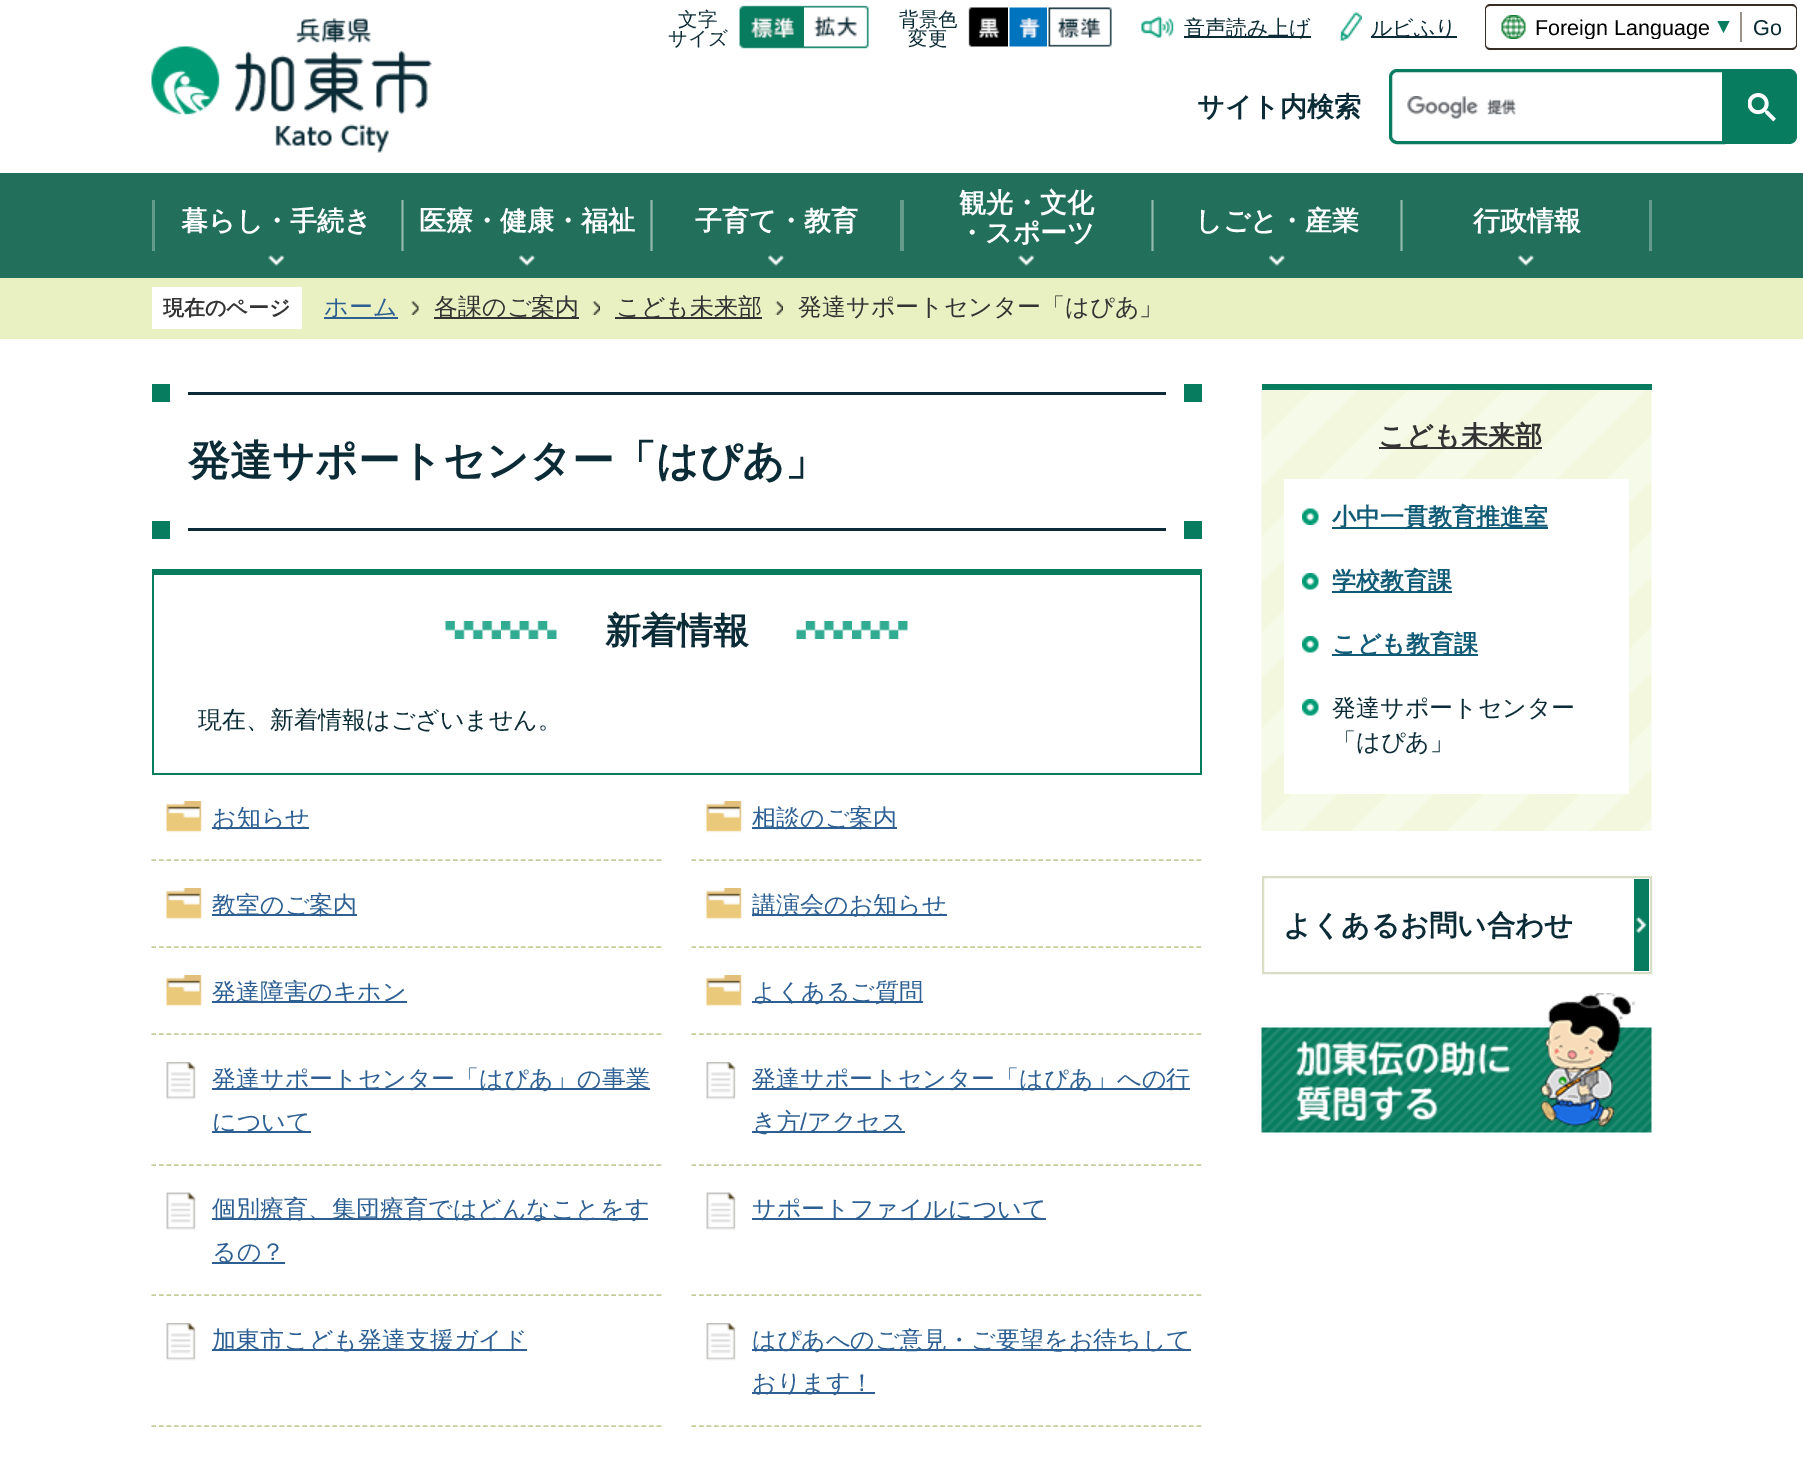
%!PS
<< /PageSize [1803 1476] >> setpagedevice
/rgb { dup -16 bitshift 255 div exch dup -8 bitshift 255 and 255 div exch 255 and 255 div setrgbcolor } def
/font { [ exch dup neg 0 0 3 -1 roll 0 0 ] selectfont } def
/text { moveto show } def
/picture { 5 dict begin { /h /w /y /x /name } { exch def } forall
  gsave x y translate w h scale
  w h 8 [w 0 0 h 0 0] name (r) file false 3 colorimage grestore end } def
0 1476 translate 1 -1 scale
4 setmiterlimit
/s1 { /WenQuanYiZenHei-Medium 19.5 font 16#0B2C37 rgb } def
/s2 { /WenQuanYiZenHei-Medium 21 font 16#0B2C37 rgb } def
/s3 { /LiberationSans-Regular 21.5 font 16#000000 rgb } def
/s4 { /LiberationSans-Regular 21.5 font 16#0B2C37 rgb } def
/s5 { /WenQuanYiZenHei-Bold 27 font 16#0B2C37 rgb } def
/s6 { /WenQuanYiZenHei-Bold 27 font 16#FFFFFF rgb } def
/s7 { /WenQuanYiZenHei-Bold 21 font 16#333333 rgb } def
/s8 { /WenQuanYiZenHei-Medium 24 font 16#2D5F92 rgb } def
/s9 { /WenQuanYiZenHei-Medium 24 font 16#333333 rgb } def
/s10 { /WenQuanYiZenHei-Bold 42 font 16#0B2C37 rgb } def
/s11 { /WenQuanYiZenHei-Bold 36 font 16#0B2C37 rgb } def
/s12 { /WenQuanYiZenHei-Medium 24 font 16#0B2C37 rgb } def
/s13 { /LiberationSans-Regular 24 font 16#2D5F92 rgb } def
/s14 { /WenQuanYiZenHei-Bold 27 font 16#333333 rgb } def
/s15 { /WenQuanYiZenHei-Bold 24 font 16#115B76 rgb } def
/s16 { /WenQuanYiZenHei-Bold 28.5 font 16#0B2C37 rgb } def
16#FFFFFF rgb
0 0 1803 1476 rectfill
(pic1.raw) 151 18 281 135 picture
s1
(文字) 678 26 text
(サイズ) 668 45 text
(pic2.raw) 739 5 65 44 picture
(pic3.raw) 804 5 65 44 picture
(背景色) 899 26 text
(変更) 908 45 text
(pic4.raw) 968 7 40 40 picture
(pic5.raw) 1009 7 38 40 picture
(pic6.raw) 1048 7 64 40 picture
(pic7.raw) 1141 16 33 22 picture
1184 36 127 2 rectfill
s2
(音声読み上げ) 1184 35 text
(pic8.raw) 1339 12 23 29 picture
1371 36 86 2 rectfill
(ルビふり) 1371 35 text
(pic9.raw) 1501 15 25 24 picture
16#382D25 rgb
1490 4 moveto 1740 4 lineto 1740 50 lineto 1490 50 lineto 1487 50 1485 47 1485 45 curveto 1485 9 lineto 1485 7 1487 4 1490 4 curveto closepath 1490 6 moveto 1740 6 lineto 1740 48 lineto 1490 48 lineto 1488 48 1486 47 1486 45 curveto 1486 9 lineto 1486 7 1488 6 1490 6 curveto closepath eofill
gsave
1535 15 175 24 rectclip
s3
(Foreign Language) 1535 35 text
grestore
16#077C5F rgb
1717.5 21 moveto 1729.5 21 lineto 1723.5 33 lineto closepath fill
16#382D25 rgb
1740 4 moveto 1792 4 lineto 1795 4 1797 7 1797 9 curveto 1797 45 lineto 1797 47 1795 50 1792 50 curveto 1740 50 lineto closepath 1740 6 moveto 1792 6 lineto 1794 6 1796 7 1796 9 curveto 1796 45 lineto 1796 47 1794 48 1792 48 curveto 1740 48 lineto closepath eofill
16#9B948C rgb
1740 12 2 30 rectfill
s4
(Go) 1753 35 text
s5
(サイト内検索) 1197 116 text
16#077C5F rgb
3 setlinewidth
1397 70.5 moveto 1723.5 70.5 lineto 1723.5 142.5 lineto 1397 142.5 lineto 1393.5 142.5 1390.5 139.5 1390.5 136 curveto 1390.5 77 lineto 1390.5 73.5 1393.5 70.5 1397 70.5 curveto closepath stroke
(pic10.raw) 1407 96 109 23 picture
1725 69 moveto 1789 69 lineto 1793.5 69 1797 72.5 1797 77 curveto 1797 136 lineto 1797 140.5 1793.5 144 1789 144 curveto 1725 144 lineto closepath fill
(pic11.raw) 1748 93 28 29 picture
16#22705C rgb
0 173 1803 105 rectfill
16#649B8D rgb
1402 200 1 51 rectfill
1153 200 1 51 rectfill
652 200 1 51 rectfill
403 200 1 51 rectfill
(pic12.raw) 268 255 17 11 picture
152 200 3 51 rectfill
s6
(暮らし・手続き) 181 230 text
16#649B8D rgb
401 200 1 51 rectfill
16#93B9AF rgb
402 200 1 51 rectfill
(pic13.raw) 519 255 17 11 picture
s6
(医療・健康・福祉) 419 230 text
16#649B8D rgb
650 200 1 51 rectfill
16#93B9AF rgb
651 200 1 51 rectfill
(pic13.raw) 768 255 17 11 picture
s6
(子育て・教育) 695 230 text
16#649B8D rgb
900 200 4 51 rectfill
(pic12.raw) 1018 255 17 11 picture
s6
(観光・文化) 959 212 text
(・スポーツ) 958 242 text
16#649B8D rgb
1151 200 1 51 rectfill
16#93B9AF rgb
1152 200 1 51 rectfill
(pic14.raw) 1269 255 17 11 picture
s6
(しごと・産業) 1195 230 text
16#649B8D rgb
1400 200 1 51 rectfill
16#93B9AF rgb
1401 200 1 51 rectfill
(pic15.raw) 1518 255 17 11 picture
s6
(行政情報) 1473 230 text
16#649B8D rgb
1649 200 3 51 rectfill
16#E9F1C3 rgb
0 278 1803 61 rectfill
16#FFFFFF rgb
152 287 150 42 rectfill
s7
(現在のページ) 163 315 text
16#2D5F92 rgb
324 317 74 2 rectfill
s8
(ホーム) 324 315 text
(pic16.raw) 411 301 8 14 picture
16#333333 rgb
434 317 145 2 rectfill
(各課のご案内) 434 315 text
(pic17.raw) 592 301 8 14 picture
615 317 147 2 rectfill
(こども未来部) 616 315 text
(pic18.raw) 775 301 8 14 picture
(発達サポートセンター「はぴあ」) 798 315 text
16#077C5F rgb
152 384 18 18 rectfill
1184 384 18 18 rectfill
16#0B2C37 rgb
188 392 978 3 rectfill
188 528 978 3 rectfill
s10
(発達サポートセンター「はぴあ」) 188 475 text
16#077C5F rgb
152 521 18 18 rectfill
1184 521 18 18 rectfill
152 569 1050 6 rectfill
1200 569 2 102 rectfill
152 569 2 102 rectfill
(pic19.raw) 445 621 463 18 picture
s11
(新着情報) 605 643 text
16#077C5F rgb
1200 671 2 103 rectfill
152 773 1050 2 rectfill
152 671 2 103 rectfill
s12
(現在、新着情報はございません。) 198 728 text
(pic20.raw) 166 801 37 32 picture
16#C4CD9A rgb
1.5 setlinewidth
[4.5 3.04] 0 setdash
151.5 860 moveto 661.5 860 lineto stroke
16#2D5F92 rgb
212 827 97 2 rectfill
(お知らせ) 212 826 text
(pic21.raw) 706 801 37 32 picture
16#C4CD9A rgb
691.5 860 moveto 1201.5 860 lineto stroke
16#2D5F92 rgb
752 827 145 2 rectfill
(相談のご案内) 752 826 text
(pic20.raw) 166 888 37 32 picture
16#C4CD9A rgb
151.5 947 moveto 661.5 947 lineto stroke
16#2D5F92 rgb
212 914 145 2 rectfill
(教室のご案内) 212 913 text
(pic21.raw) 706 888 37 32 picture
16#C4CD9A rgb
691.5 947 moveto 1201.5 947 lineto stroke
16#2D5F92 rgb
752 914 195 2 rectfill
(講演会のお知らせ) 752 913 text
(pic20.raw) 166 975 37 32 picture
16#C4CD9A rgb
151.5 1034 moveto 661.5 1034 lineto stroke
16#2D5F92 rgb
212 1001 195 2 rectfill
(発達障害のキホン) 212 1000 text
(pic21.raw) 706 975 37 32 picture
16#C4CD9A rgb
691.5 1034 moveto 1201.5 1034 lineto stroke
16#2D5F92 rgb
752 1001 171 2 rectfill
(よくあるご質問) 752 1000 text
(pic22.raw) 166 1062 30 38 picture
16#C4CD9A rgb
151.5 1165 moveto 661.5 1165 lineto stroke
16#2D5F92 rgb
212 1088 438 2 rectfill
(発達サポートセンター「はぴあ」の事業) 212 1087 text
212 1131 99 2 rectfill
(について) 212 1130 text
(pic23.raw) 706 1062 30 38 picture
16#C4CD9A rgb
691.5 1165 moveto 1201.5 1165 lineto stroke
16#2D5F92 rgb
752 1088 438 2 rectfill
(発達サポートセンター「はぴあ」への行) 752 1087 text
752 1131 153 2 rectfill
(き方) 752 1130 text
s13
(/) 800 1130 text
s8
(アクセス) 807 1130 text
(pic24.raw) 166 1192 30 38 picture
16#C4CD9A rgb
151.5 1295 moveto 661.5 1295 lineto stroke
16#2D5F92 rgb
212 1218 436 2 rectfill
(個別療育、集団療育ではどんなことをす) 212 1217 text
212 1262 73 2 rectfill
(るの？) 212 1260 text
(pic25.raw) 706 1192 30 38 picture
16#C4CD9A rgb
691.5 1295 moveto 1201.5 1295 lineto stroke
16#2D5F92 rgb
752 1218 294 2 rectfill
(サポートファイルについて) 752 1217 text
(pic22.raw) 166 1323 30 38 picture
16#C4CD9A rgb
151.5 1426 moveto 661.5 1426 lineto stroke
16#2D5F92 rgb
212 1349 315 2 rectfill
(加東市こども発達支援ガイド) 212 1348 text
(pic23.raw) 706 1323 30 38 picture
16#C4CD9A rgb
691.5 1426 moveto 1201.5 1426 lineto stroke
16#2D5F92 rgb
752 1349 439 2 rectfill
(はぴあへのご意見・ご要望をお待ちして) 752 1348 text
752 1392 123 2 rectfill
(おります！) 752 1391 text
(pic26.raw) 1261 384 391 447 picture
16#077C5F rgb
1262 384 390 6 rectfill
16#333333 rgb
1379 447 163 2 rectfill
s14
(こども未来部) 1378 445 text
16#FFFFFF rgb
1284 479 345 315 rectfill
(pic27.raw) 1302 508 17 17 picture
16#115B76 rgb
1332 527 216 2 rectfill
s15
(小中一貫教育推進室) 1332 525 text
(pic28.raw) 1302 573 17 17 picture
1332 591 120 2 rectfill
(学校教育課) 1332 589 text
(pic28.raw) 1302 636 17 17 picture
1332 654 146 2 rectfill
(こども教育課) 1332 652 text
(pic28.raw) 1302 699 17 17 picture
s12
(発達サポートセンター) 1332 716 text
(「はぴあ」) 1332 750 text
16#DADEC7 rgb
2 setlinewidth
[] 0 setdash
1263 877 388 96 rectstroke
s16
(よくあるお問い合わせ) 1283 935 text
16#077C5F rgb
1634 879 15 92 rectfill
(pic29.raw) 1636 916 11 17 picture
(pic30.raw) 1261 993 391 140 picture
showpage
